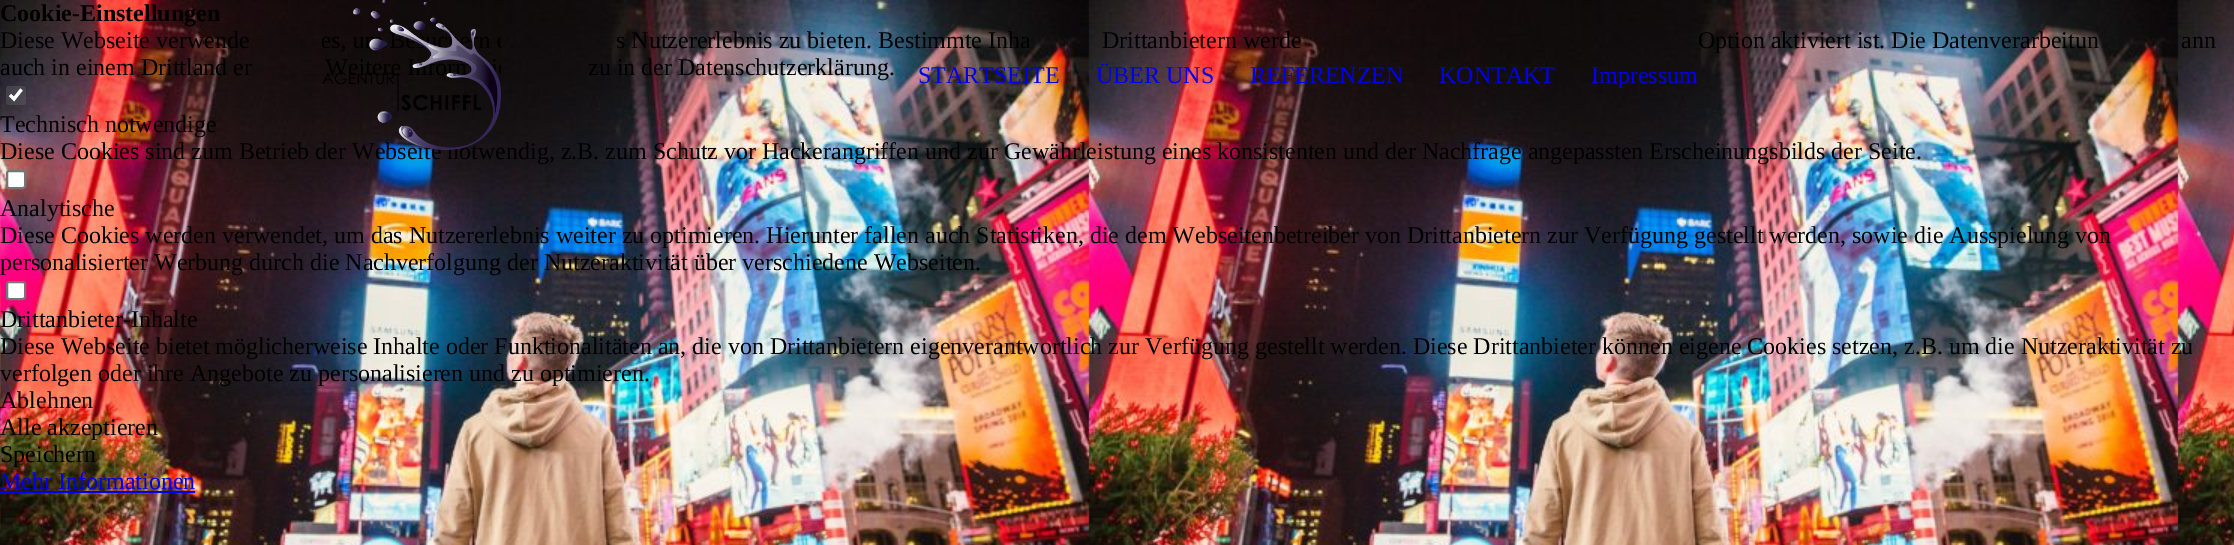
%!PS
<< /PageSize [2234 545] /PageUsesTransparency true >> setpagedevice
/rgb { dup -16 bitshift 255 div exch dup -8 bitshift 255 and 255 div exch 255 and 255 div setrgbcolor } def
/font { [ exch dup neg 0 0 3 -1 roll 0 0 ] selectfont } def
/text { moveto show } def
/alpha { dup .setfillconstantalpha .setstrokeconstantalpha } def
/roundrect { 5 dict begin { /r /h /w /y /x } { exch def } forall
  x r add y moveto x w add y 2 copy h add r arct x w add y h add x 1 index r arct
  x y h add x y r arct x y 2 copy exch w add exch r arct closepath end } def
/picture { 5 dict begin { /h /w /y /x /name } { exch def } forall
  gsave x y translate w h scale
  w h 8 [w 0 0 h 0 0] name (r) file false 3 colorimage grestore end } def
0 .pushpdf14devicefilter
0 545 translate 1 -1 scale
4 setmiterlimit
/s1 { /LiberationSerif-Bold 24 font 16#000000 rgb } def
/s2 { /LiberationSerif-Regular 24 font 16#000000 rgb } def
/s3 { /LiberationSerif-Regular 24 font 16#0000EE rgb } def
16#FFFFFF rgb
0 0 2234 545 rectfill
(pic1.raw) 0 0 2234 545 picture
s1
(Cookie-Einstellungen) 0 21 text
s2
(Diese Webseite verwende) 0 48 text
(s Nutzererlebnis zu bieten. Bestimmte Inha) 616 48 text
(Drittanbietern werde) 1102 48 text
(Option aktiviert ist. Die Datenverarbeitun) 1698 48 text
(ann) 2181 48 text
(auch in einem Drittland er) 0 75 text
(zu in der Datenschutzerklärung.) 588 75 text
0.3 alpha
16#767676 rgb
6 86 20 19 3 roundrect fill
1 alpha
16#FFFFFF rgb
3.1 setlinewidth
10 95 moveto 14 99 lineto 21.5 89.5 lineto stroke
s2
(Technisch notwendige) 0 132 text
(Diese Cookies sind zum Betrieb der Webseite notwendig, z.B. zum Schutz vor Hackerangriffen und zur Gewährleistung eines konsistenten und der Nachfrage angepassten Erscheinungsbilds der Seite.) 0 159 text
16#FFFFFF rgb
7 171 18 17 2 roundrect gsave fill grestore
16#767676 rgb
2 setlinewidth
stroke
s2
(Analytische) 0 216 text
(Diese Cookies werden verwendet, um das Nutzererlebnis weiter zu optimieren. Hierunter fallen auch Statistiken, die dem Webseitenbetreiber von Drittanbietern zur Verfügung gestellt werden, sowie die Ausspielung von) 0 243 text
(personalisierter Werbung durch die Nachverfolgung der Nutzeraktivität über verschiedene Webseiten.) 0 270 text
16#FFFFFF rgb
7 282 18 17 2 roundrect gsave fill grestore
16#767676 rgb
stroke
s2
(Drittanbieter-Inhalte) 0 327 text
(Diese Webseite bietet möglicherweise Inhalte oder Funktionalitäten an, die von Drittanbietern eigenverantwortlich zur Verfügung gestellt werden. Diese Drittanbieter können eigene Cookies setzen, z.B. um die Nutzeraktivität zu) 0 354 text
(verfolgen oder ihre Angebote zu personalisieren und zu optimieren.) 0 381 text
(Ablehnen) 0 408 text
(Alle akzeptieren) 0 435 text
(Speichern) 0 462 text
s3
(Mehr Informationen) 0 489 text
0 491 195 2 rectfill
(pic2.raw) 322 0 179 150 picture
(STARTSEITE) 918 83 text
(ÜBER UNS) 1096 83 text
(REFERENZEN) 1250 83 text
(KONTAKT) 1439 83 text
(Impressum) 1591 83 text
.poppdf14devicefilter showpage
